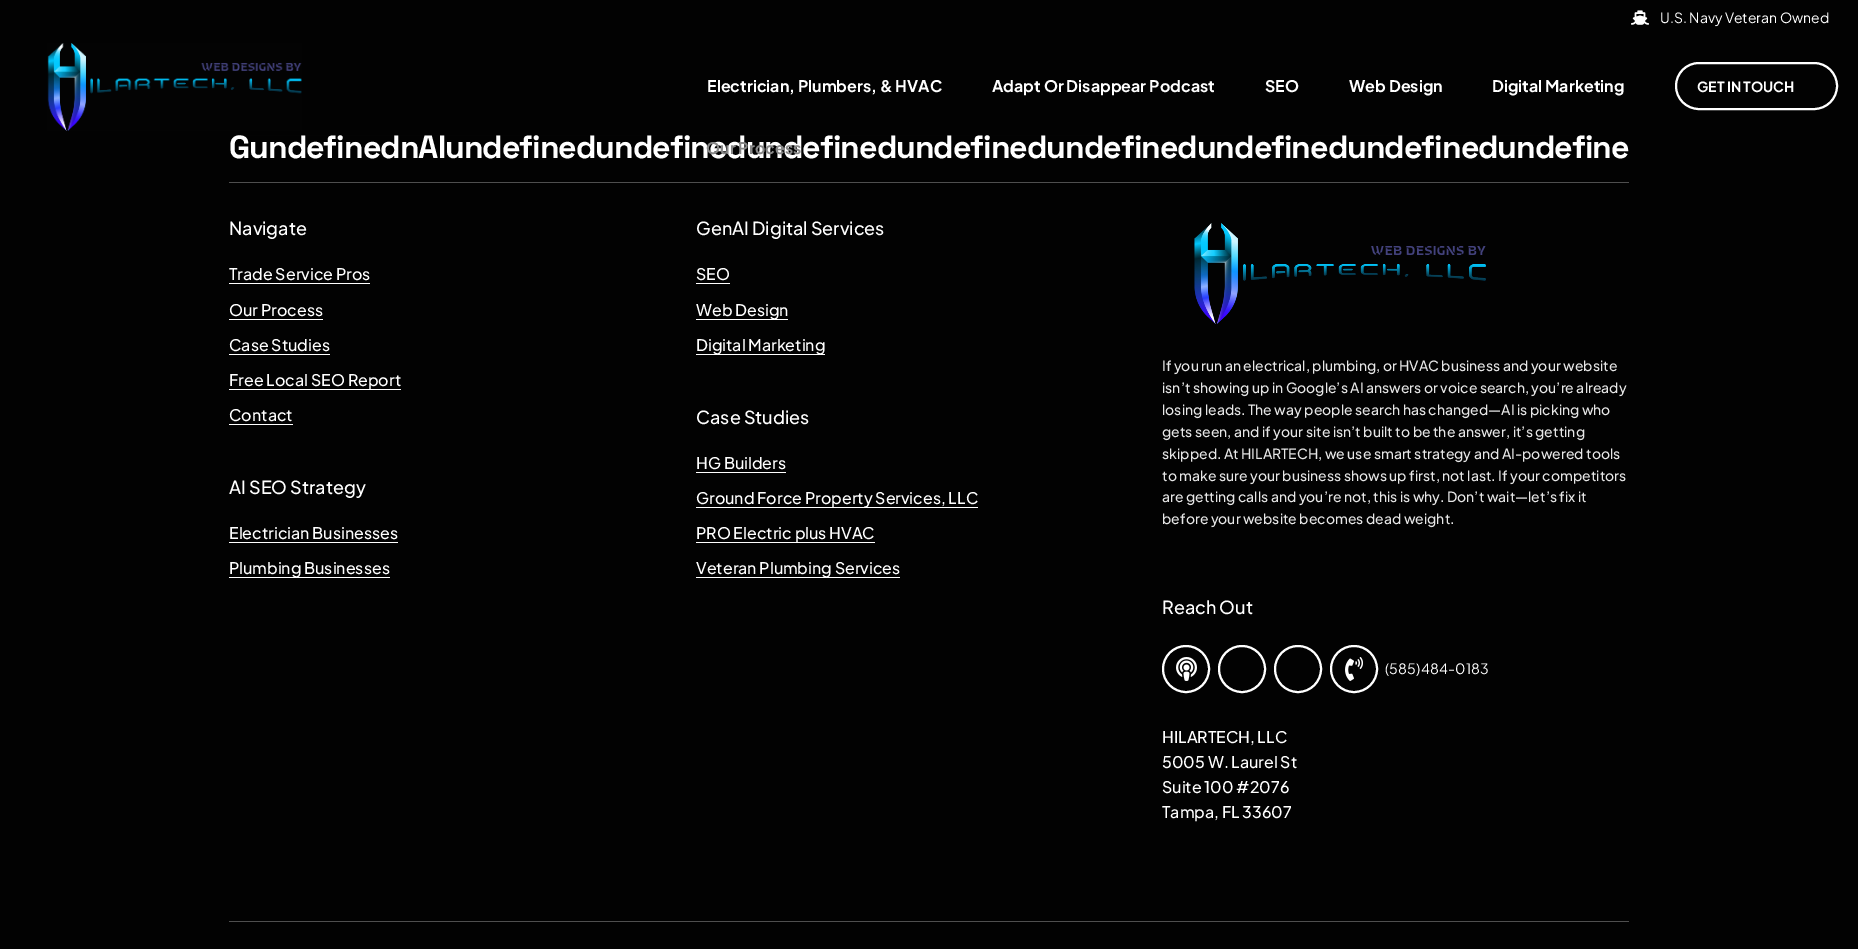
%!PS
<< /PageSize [1858 949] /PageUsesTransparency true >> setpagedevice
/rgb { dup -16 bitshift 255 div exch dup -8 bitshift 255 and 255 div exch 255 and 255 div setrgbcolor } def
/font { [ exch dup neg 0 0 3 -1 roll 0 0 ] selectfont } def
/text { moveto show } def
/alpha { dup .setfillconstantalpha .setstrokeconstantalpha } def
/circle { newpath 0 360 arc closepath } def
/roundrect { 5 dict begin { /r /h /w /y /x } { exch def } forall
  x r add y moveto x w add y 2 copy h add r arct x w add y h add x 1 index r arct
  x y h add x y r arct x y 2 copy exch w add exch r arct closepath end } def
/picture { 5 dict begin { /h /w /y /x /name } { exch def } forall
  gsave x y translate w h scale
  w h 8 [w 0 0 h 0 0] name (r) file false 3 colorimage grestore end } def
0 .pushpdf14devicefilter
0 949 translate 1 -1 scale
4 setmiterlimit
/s1 { /PlusJakartaSans-Regular 14 font 16#FFFFFF rgb } def
/s2 { /PlusJakartaSans-Bold 16 font 16#FFFFFF rgb } def
/s3 { /PlusJakartaSans-Bold 16 font 16#878787 rgb } def
/s4 { /PlusJakartaSans-Bold 14 font 16#FFFFFF rgb } def
/s5 { /PlusJakartaSans-Medium 18 font 16#FFFFFF rgb } def
/s6 { /PlusJakartaSans-Medium 16 font 16#FFFFFF rgb } def
/s7 { /PlusJakartaSans-Medium 14 font 16#E6E6E6 rgb } def
16#020202 rgb
0 0 1858 949 rectfill
(pic1.raw) 1631 10 18 15 picture
s1
(U.S. Navy Veteran Owned) 1660 23 text
0.1 alpha
16#101010 rgb
236 135 1355 1 rectfill
1 alpha
(pic2.raw) 47 43 255 88 picture
s2
(Electrician, Plumbers, & HVAC) 707 92 text
/SpaceGrotesk-Bold 32 font
229 158 moveto -1 0 (GundefinednAIundefinedundefinedundefinedundefinedundefinedundefinedundefinedundefine) ashow
s3
(Our Process) 706 154 text
s2
(Adapt Or Disappear Podcast) 992 92 text
(SEO) 1265 92 text
(Web Design) 1349 92 text
(Digital Marketing) 1492 92 text
2 setlinewidth
1676 63 161 46 23 roundrect stroke
s4
(GET IN TOUCH) 1697 92 text
16#4E4E4E rgb
229 182 1400 1 rectfill
s5
(Navigate) 229 235 text
s6
(Trade Service Pros) 229 280 text
229 283 141 1 rectfill
(Our Process) 229 316 text
229 319 94 1 rectfill
(Case Studies) 229 351 text
229 354 101 1 rectfill
(Free Local SEO Report) 229 386 text
229 389 172 1 rectfill
(Contact) 229 421 text
229 424 64 1 rectfill
s5
(AI SEO Strategy) 229 494 text
s6
(Electrician Businesses) 229 539 text
229 542 169 1 rectfill
(Plumbing Businesses) 229 574 text
229 577 161 1 rectfill
s5
(GenAI Digital Services) 696 235 text
s6
(SEO) 696 280 text
696 283 34 1 rectfill
(Web Design) 696 316 text
696 319 92 1 rectfill
(Digital Marketing) 696 351 text
696 354 129 1 rectfill
s5
(Case Studies) 696 424 text
s6
(HG Builders) 696 469 text
696 472 90 1 rectfill
(Ground Force Property Services, LLC) 696 504 text
696 507 282 1 rectfill
(PRO Electric plus HVAC) 696 539 text
696 542 179 1 rectfill
(Veteran Plumbing Services) 696 574 text
696 577 204 1 rectfill
(pic3.raw) 1194 223 292 101 picture
s7
(If you run an electrical, plumbing, or HVAC business and your website) 1162 371 text
(isn’t showing up in Google’s AI answers or voice search, you’re already) 1162 393 text
(losing leads. The way people search has changed—AI is picking who) 1162 415 text
(gets seen, and if your site isn’t built to be the answer, it’s getting) 1162 437 text
(skipped. At HILARTECH, we use smart strategy and AI-powered tools) 1162 459 text
(to make sure your business shows up first, not last. If your competitors) 1162 481 text
(are getting calls and you’re not, this is why. Don’t wait—let’s fix it) 1162 502 text
(before your website becomes dead weight.) 1162 524 text
s5
(Reach Out) 1162 614 text
1186 669 23 circle stroke
(pic4.raw) 1176 657 21 24 picture
1242 669 23 circle stroke
1298 669 23 circle stroke
1354 669 23 circle stroke
(pic5.raw) 1345 657 18 24 picture
/PlusJakartaSans-Regular 14.25 font
1385 674 moveto -1 0 32 (\(585\) 484-0183) widthshow
s6
(HILARTECH, LLC) 1162 743 text
(5005 W. Laurel St) 1162 768 text
(Suite 100 #2076) 1162 793 text
(Tampa, FL 33607) 1162 818 text
16#4E4E4E rgb
229 921 1400 1 rectfill
.poppdf14devicefilter showpage
